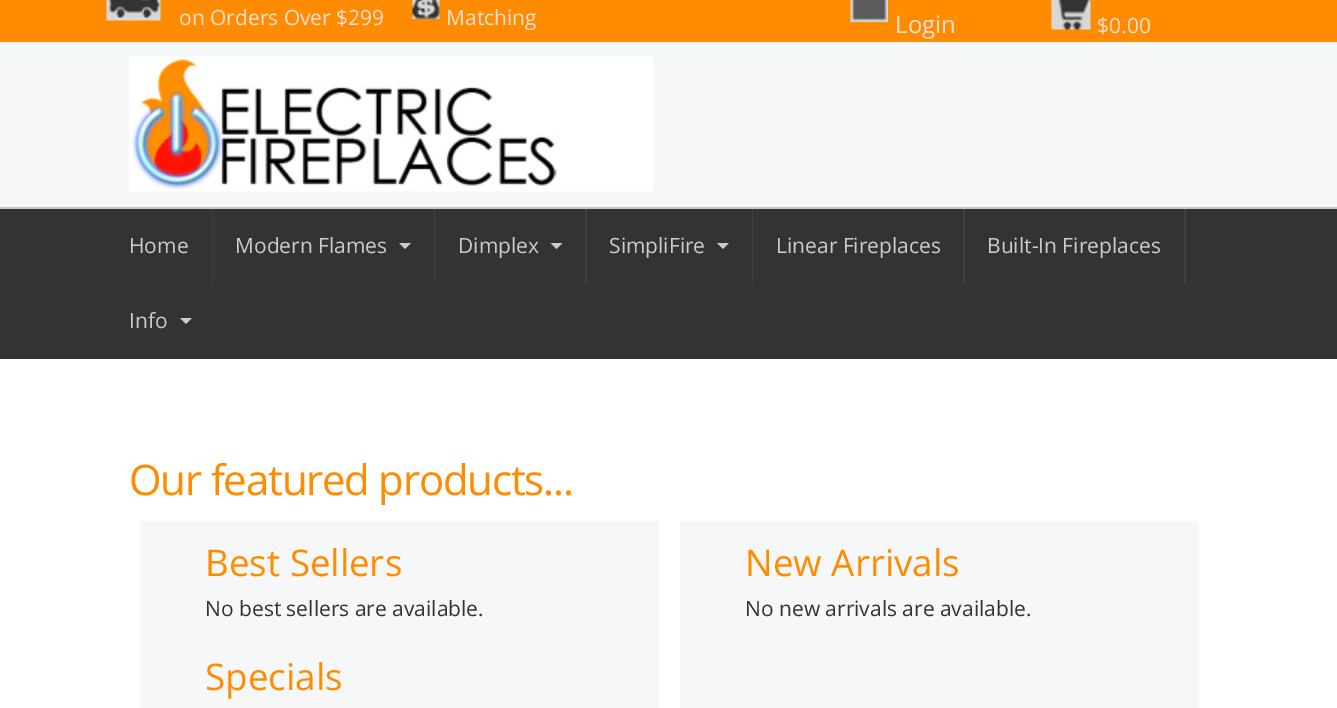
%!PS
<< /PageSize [1337 708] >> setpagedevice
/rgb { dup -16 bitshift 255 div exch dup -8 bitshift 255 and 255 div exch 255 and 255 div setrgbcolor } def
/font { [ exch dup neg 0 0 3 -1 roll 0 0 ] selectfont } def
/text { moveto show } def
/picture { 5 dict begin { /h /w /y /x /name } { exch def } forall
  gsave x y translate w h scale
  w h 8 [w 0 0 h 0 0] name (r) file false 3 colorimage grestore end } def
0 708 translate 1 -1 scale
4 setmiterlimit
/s1 { /OpenSans-Regular 21 font 16#FFDFD7 rgb } def
/s2 { /OpenSans-Regular 24 font 16#FFDFD7 rgb } def
/s3 { /OpenSans-Regular 21 font 16#CCCCCC rgb } def
/s4 { /OpenSans-Regular 36.75 font 16#FF8C00 rgb } def
/s5 { /OpenSans-Regular 21 font 16#333333 rgb } def
16#FFFFFF rgb
0 0 1337 708 rectfill
16#FF8C00 rgb
0 0 1337 42 rectfill
(pic1.raw) 106 0 55 21 picture
s1
(on Orders Over $299) 179 25 text
(pic2.raw) 412 0 28 19 picture
(Matching) 446 25 text
(pic3.raw) 850 0 38 22 picture
s2
(Login) 895 33 text
(pic4.raw) 1051 0 40 30 picture
s1
($0.00) 1097 33 text
16#F5F7F8 rgb
0 42 1337 165 rectfill
16#C7C8CA rgb
0 207 1337 2 rectfill
(pic5.raw) 129 56 525 136 picture
16#333333 rgb
0 209 1337 150 rectfill
s3
(Home) 129 253 text
16#404040 rgb
212 209 1 75 rectfill
s3
(Modern Flames) 235 253 text
399 243 moveto 411 243 lineto 405 249 lineto closepath fill
16#404040 rgb
434 209 1 75 rectfill
s3
(Dimplex) 458 253 text
550.5 243 moveto 562.5 243 lineto 556.5 249 lineto closepath fill
16#404040 rgb
585 209 2 75 rectfill
s3
(SimpliFire) 609 253 text
717 243 moveto 729 243 lineto 723 249 lineto closepath fill
16#404040 rgb
752 209 1 75 rectfill
s3
(Linear Fireplaces) 776 253 text
16#404040 rgb
963 209 2 75 rectfill
s3
(Built-In Fireplaces) 987 253 text
16#404040 rgb
1184 209 2 75 rectfill
s3
(Info) 129 328 text
180 318 moveto 192 318 lineto 186 324 lineto closepath fill
/OpenSans-Regular 42 font
16#FF8C00 rgb
129 495 moveto -1.25 0 (Our featured products...) ashow
16#F5F7F8 rgb
140 521 519 187 rectfill
s4
(Best Sellers) 205 576 text
s5
(No best sellers are available.) 205 616 text
16#F5F7F8 rgb
680 521 519 187 rectfill
s4
(New Arrivals) 745 576 text
s5
(No new arrivals are available.) 745 616 text
s4
(Specials) 205 690 text
showpage
